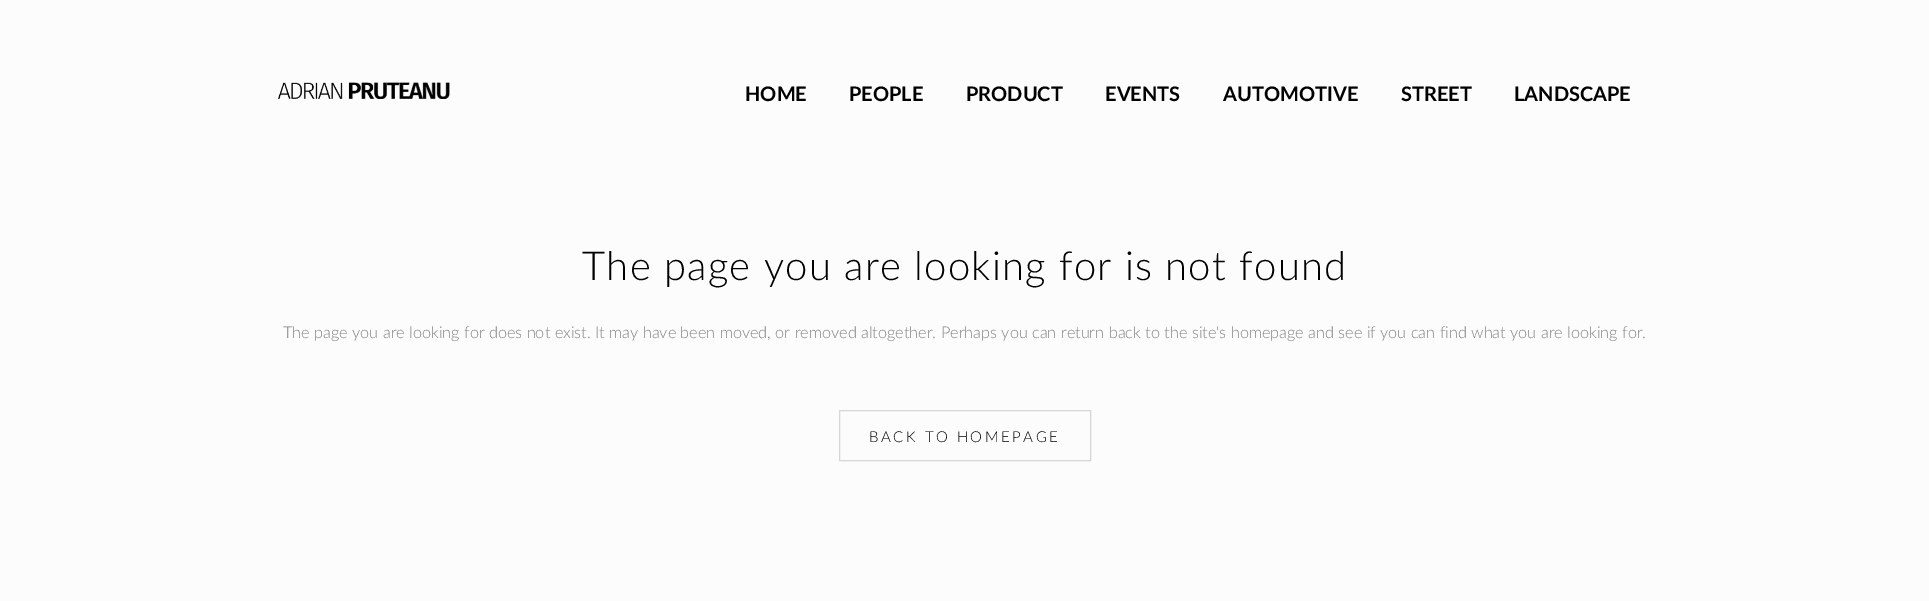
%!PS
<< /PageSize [1929 601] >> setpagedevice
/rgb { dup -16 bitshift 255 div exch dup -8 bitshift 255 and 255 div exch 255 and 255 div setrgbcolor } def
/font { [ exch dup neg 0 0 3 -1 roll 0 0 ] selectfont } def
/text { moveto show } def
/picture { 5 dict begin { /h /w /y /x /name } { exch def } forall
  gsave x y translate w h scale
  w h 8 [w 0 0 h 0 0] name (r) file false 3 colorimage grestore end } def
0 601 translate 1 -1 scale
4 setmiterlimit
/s1 { /Lato-Bold 20 font 16#000000 rgb } def
/s2 { /Lato-Light 16.25 font 16#818181 rgb } def
16#FCFCFC rgb
0 0 1929 601 rectfill
(pic1.raw) 278 82 172 17 picture
s1
(HOME) 745 101 text
(PEOPLE) 849 101 text
(PRODUCT) 966 101 text
(EVENTS) 1105 101 text
(AUTOMOTIVE) 1223 101 text
(STREET) 1401 101 text
(LANDSCAPE) 1514 101 text
/Lato-Light 40 font
582 280 moveto 1.25 0 (The page you are looking for is not found) ashow
s2
(The page you are looking for does not exist. It may have been moved, or removed altogether. Perhaps you can return back to the site's homepage and see if you can find what you are looking for.) 283 338 text
16#D6D6D6 rgb
839.5 410.5 251 50 rectstroke
/Lato-Light 15 font
16#000000 rgb
869 442 moveto 2.5 0 (BACK TO HOMEPAGE) ashow
showpage
